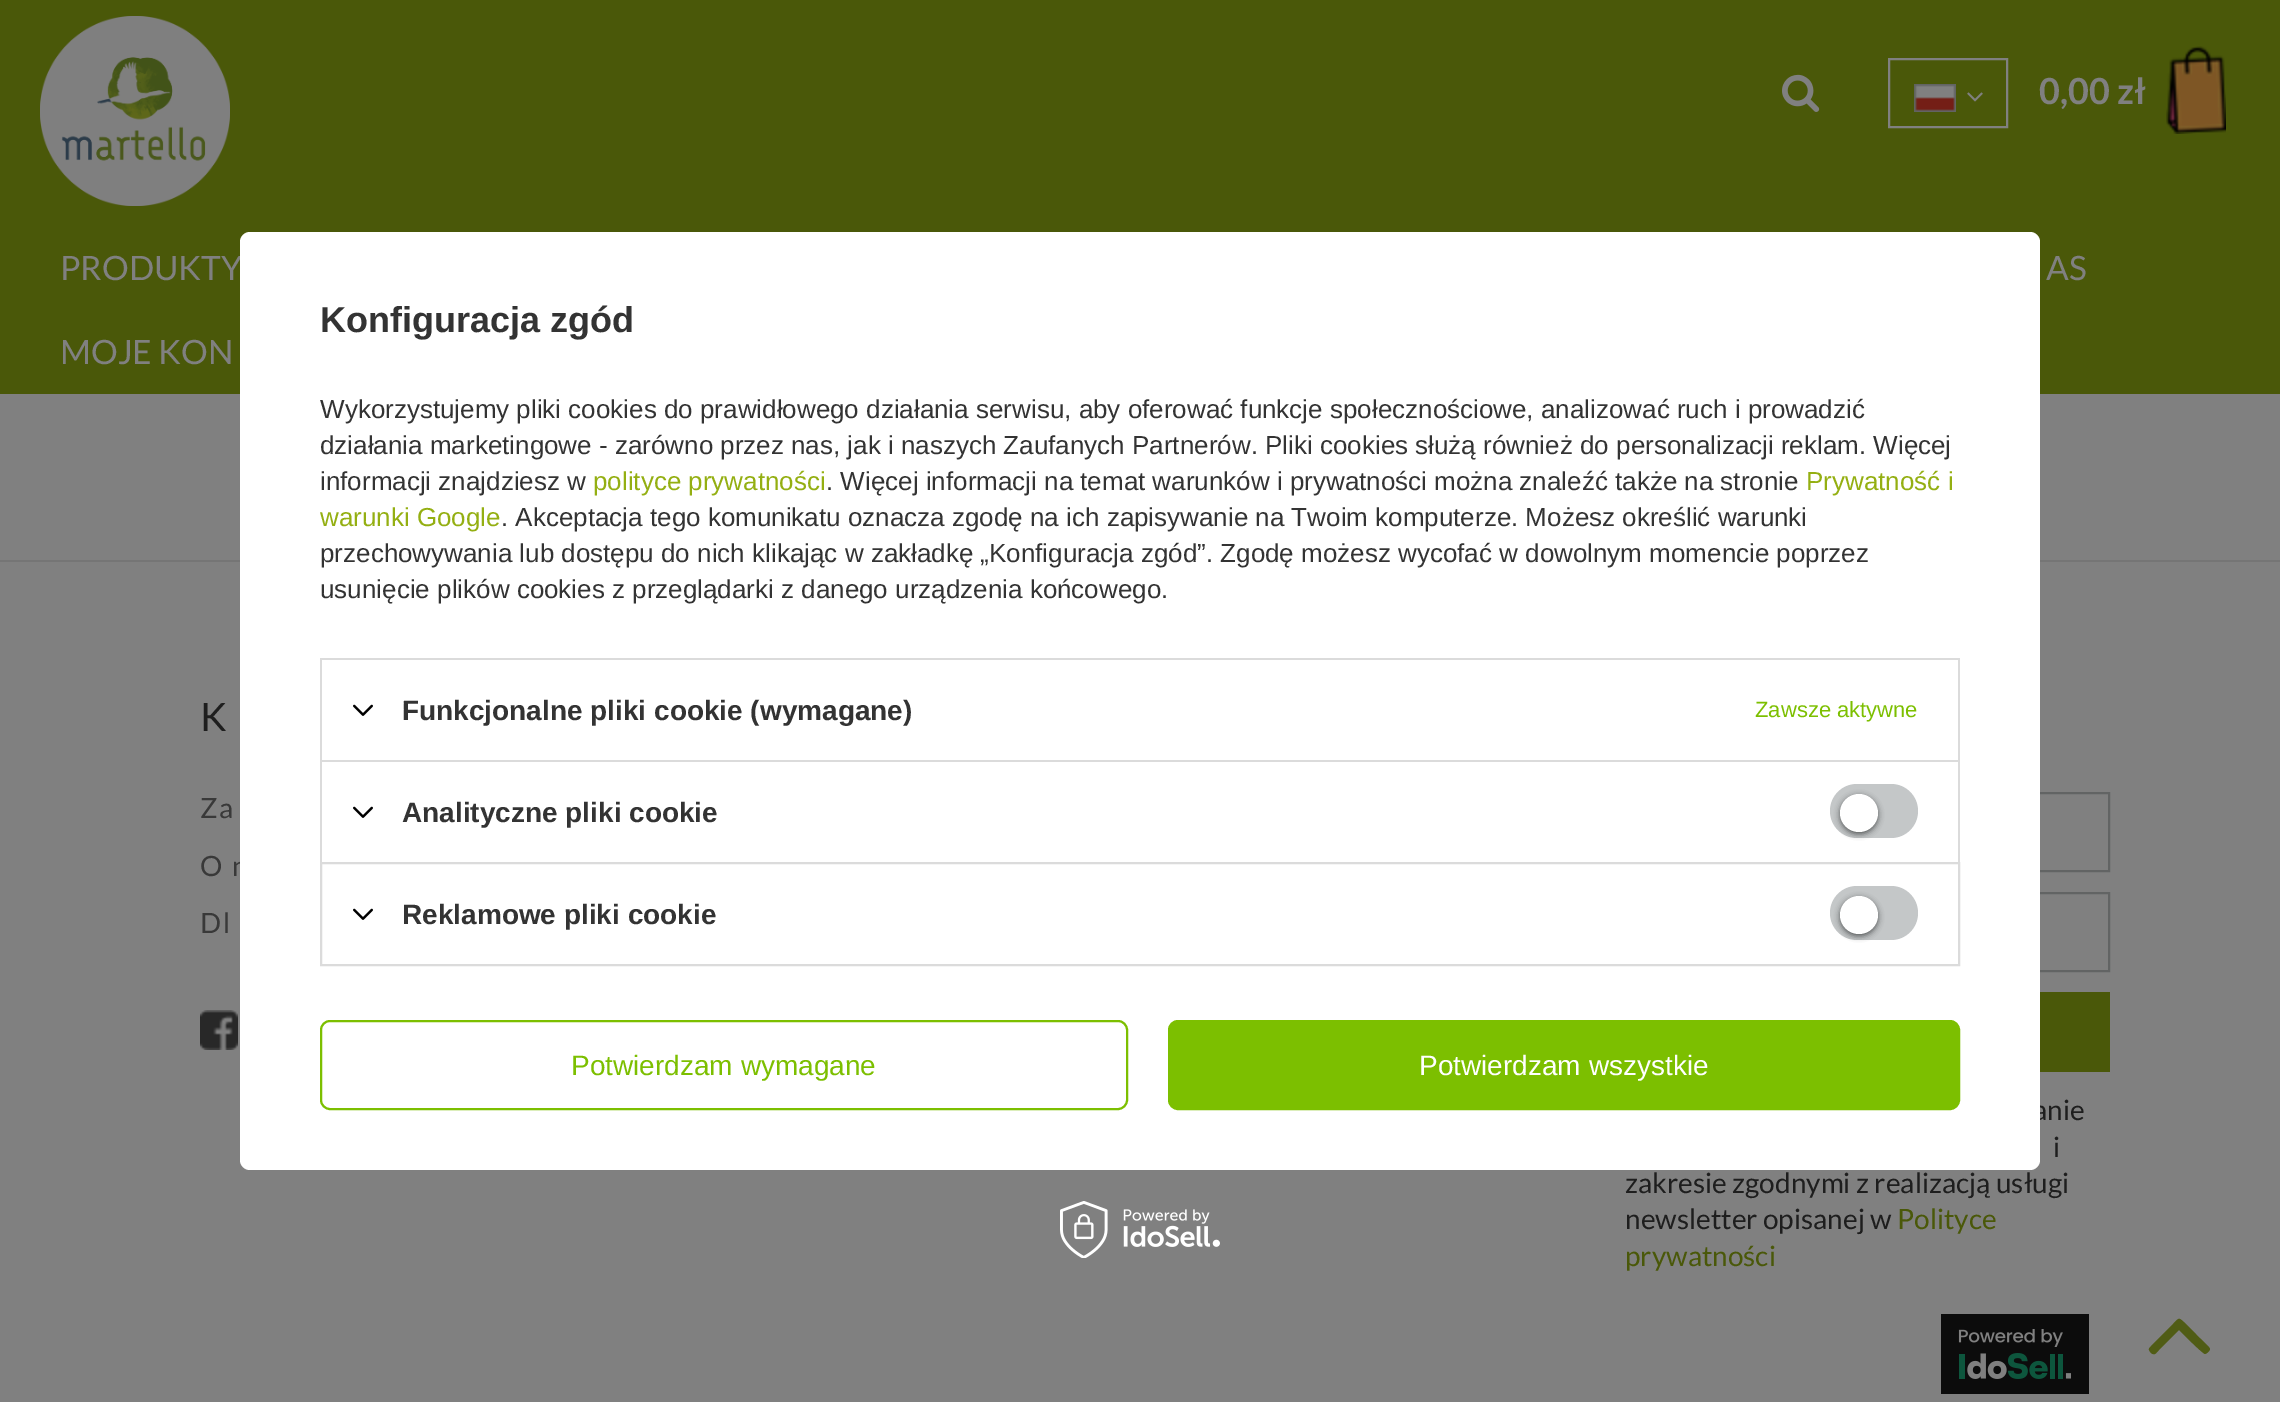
%!PS
<< /PageSize [2280 1402] /PageUsesTransparency true >> setpagedevice
/rgb { dup -16 bitshift 255 div exch dup -8 bitshift 255 and 255 div exch 255 and 255 div setrgbcolor } def
/font { [ exch dup neg 0 0 3 -1 roll 0 0 ] selectfont } def
/text { moveto show } def
/alpha { dup .setfillconstantalpha .setstrokeconstantalpha } def
/circle { newpath 0 360 arc closepath } def
/roundrect { 5 dict begin { /r /h /w /y /x } { exch def } forall
  x r add y moveto x w add y 2 copy h add r arct x w add y h add x 1 index r arct
  x y h add x y r arct x y 2 copy exch w add exch r arct closepath end } def
/shadow { 12 dict begin { /a /b /q /h /w /y /x } { exch def } forall gsave /was 0 def
  9 -2 -9 { dup b mul 4 div /e exch def 1 sub .425 mul 2.718 exch exp 1 add a .99 .min exch div /now exch def
    1 1 now sub 1 was sub div sub alpha /was now def
    w h .min e 2 mul add 0 gt { x e sub y e sub w e 2 mul add h e 2 mul add
      q e add b .6 mul add w h .min 2 div e add .min 0 .max roundrect fill } if } for grestore end } def
/picture { 5 dict begin { /h /w /y /x /name } { exch def } forall
  gsave x y translate w h scale
  w h 8 [w 0 0 h 0 0] name (r) file false 3 colorimage grestore end } def
0 .pushpdf14devicefilter
0 1402 translate 1 -1 scale
4 setmiterlimit
/s1 { /Lato-Bold 36 font 16#808080 rgb } def
/s2 { /Lato-Regular 33.5 font 16#808080 rgb } def
/s3 { /Lato-Regular 28 font 16#1E1E1E rgb } def
/s4 { /LiberationSans-Bold 36 font 16#333333 rgb } def
/s5 { /LiberationSans-Regular 26 font 16#333333 rgb } def
/s6 { /LiberationSans-Regular 26 font 16#94AF12 rgb } def
/s7 { /LiberationSans-Bold 28 font 16#333333 rgb } def
/s8 { /LiberationSans-Regular 22 font 16#7CBF00 rgb } def
/s9 { /LiberationSans-Regular 28 font 16#7CBF00 rgb } def
/s10 { /LiberationSans-Regular 28 font 16#FFFFFF rgb } def
/s11 { /Lato-Regular 28 font 16#4A5809 rgb } def
16#808080 rgb
0 0 2280 1402 rectfill
16#4A5809 rgb
0 0 2280 394 rectfill
(pic1.raw) 40 16 190 190 picture
(pic2.raw) 1782 74 38 38 picture
16#808080 rgb
2 setlinewidth
1889 59 118 68 rectstroke
(pic3.raw) 1914 84 42 28 picture
(pic4.raw) 1967 92 16 10 picture
s1
(0,00 zł) 2039 104 text
(pic5.raw) 2166 46 60 88 picture
s2
(PRODUKTY) 60 280 text
(AS) 2046 280 text
(MOJE KON) 60 364 text
16#757575 rgb
0 560 2280 2 rectfill
/Lato-Regular 28 font
16#393939 rgb
200 876 moveto 2 0 (O n) ashow
16#626464 rgb
1627 793 482 78 rectstroke
1627 893 482 78 rectstroke
s3
(anie) 2033 1120 text
16#FFFFFF rgb
240 232 1800 938 10 roundrect fill
s4
(Konfiguracja zgód) 320 332 text
s5
(Wykorzystujemy pliki cookies do prawidłowego działania serwisu, aby oferować funkcje społecznościowe, analizować ruch i prowadzić) 320 418 text
(działania marketingowe - zarówno przez nas, jak i naszych Zaufanych Partnerów. Pliki cookies służą również do personalizacji reklam. Więcej) 320 454 text
(informacji znajdziesz w) 320 490 text
s6
(polityce prywatności) 593 490 text
s5
(. Więcej informacji na temat warunków i prywatności można znaleźć także na stronie) 826 490 text
s6
(Prywatność i) 1806 490 text
(warunki Google) 320 526 text
s5
(. Akceptacja tego komunikatu oznacza zgodę na ich zapisywanie na Twoim komputerze. Możesz określić warunki) 501 526 text
(przechowywania lub dostępu do nich klikając w zakładkę „Konfiguracja zgód”. Zgodę możesz wycofać w dowolnym momencie poprzez) 320 562 text
(usunięcie plików cookies z przeglądarki z danego urządzenia końcowego.) 320 598 text
16#DBDBDB rgb
320 658 1640 2 rectfill
1958 658 2 102 rectfill
320 658 2 102 rectfill
(pic6.raw) 353 704 20 12 picture
s7
(Funkcjonalne pliki cookie \(wymagane\)) 402 720 text
s8
(Zawsze aktywne) 1755 717 text
16#DBDBDB rgb
320 760 1640 2 rectfill
1958 760 2 102 rectfill
320 760 2 102 rectfill
(pic6.raw) 353 806 20 12 picture
s7
(Analityczne pliki cookie) 402 822 text
16#C4C7C8 rgb
1830 784 88 54 27 roundrect fill
16#000000 rgb
1840 796 38 38 19 3 0.56 shadow
16#FFFFFF rgb
1859 813 19 circle fill
16#DBDBDB rgb
321 863 1638 102 rectstroke
(pic6.raw) 353 908 20 12 picture
s7
(Reklamowe pliki cookie) 402 924 text
16#C4C7C8 rgb
1830 886 88 54 27 roundrect fill
16#000000 rgb
1840 898 38 38 19 3 0.56 shadow
16#FFFFFF rgb
1859 915 19 circle fill
16#7CBF00 rgb
321 1021 806 88 9 roundrect stroke
s9
(Potwierdzam wymagane) 571 1075 text
1169 1021 790 88 9 roundrect gsave fill grestore
stroke
s10
(Potwierdzam wszystkie) 1419 1075 text
(pic7.raw) 1060 1201 160 57 picture
/Lato-Regular 39 font
16#1E1E1E rgb
200 731 moveto 4 0 (K) ashow
/Lato-Regular 28 font
16#393939 rgb
200 818 moveto 2 0 (Za) ashow
200 933 moveto 2 0 (Dl) ashow
(pic8.raw) 200 1010 38 40 picture
16#4A5809 rgb
2040 992 70 80 rectfill
s3
(i) 2053 1157 text
(zakresie zgodnymi z realizacją usługi) 1625 1193 text
(newsletter opisanej w) 1625 1229 text
s11
(Polityce) 1897 1229 text
(prywatności) 1625 1266 text
(pic9.raw) 1941 1314 148 80 picture
16#505C15 rgb
2210 1349 moveto 2210 1351 2206 1354 2205 1354 curveto 2203 1354 2182 1333 2179 1330 curveto 2159 1350 lineto 2156 1353 2155 1356 2151 1353 curveto 2147 1348 2149 1349 2154 1343 curveto 2173 1324 lineto 2180 1317 2178 1317 2186 1324 curveto 2195 1333 lineto 2197 1336 2210 1347 2210 1349 curveto closepath fill
.poppdf14devicefilter showpage
